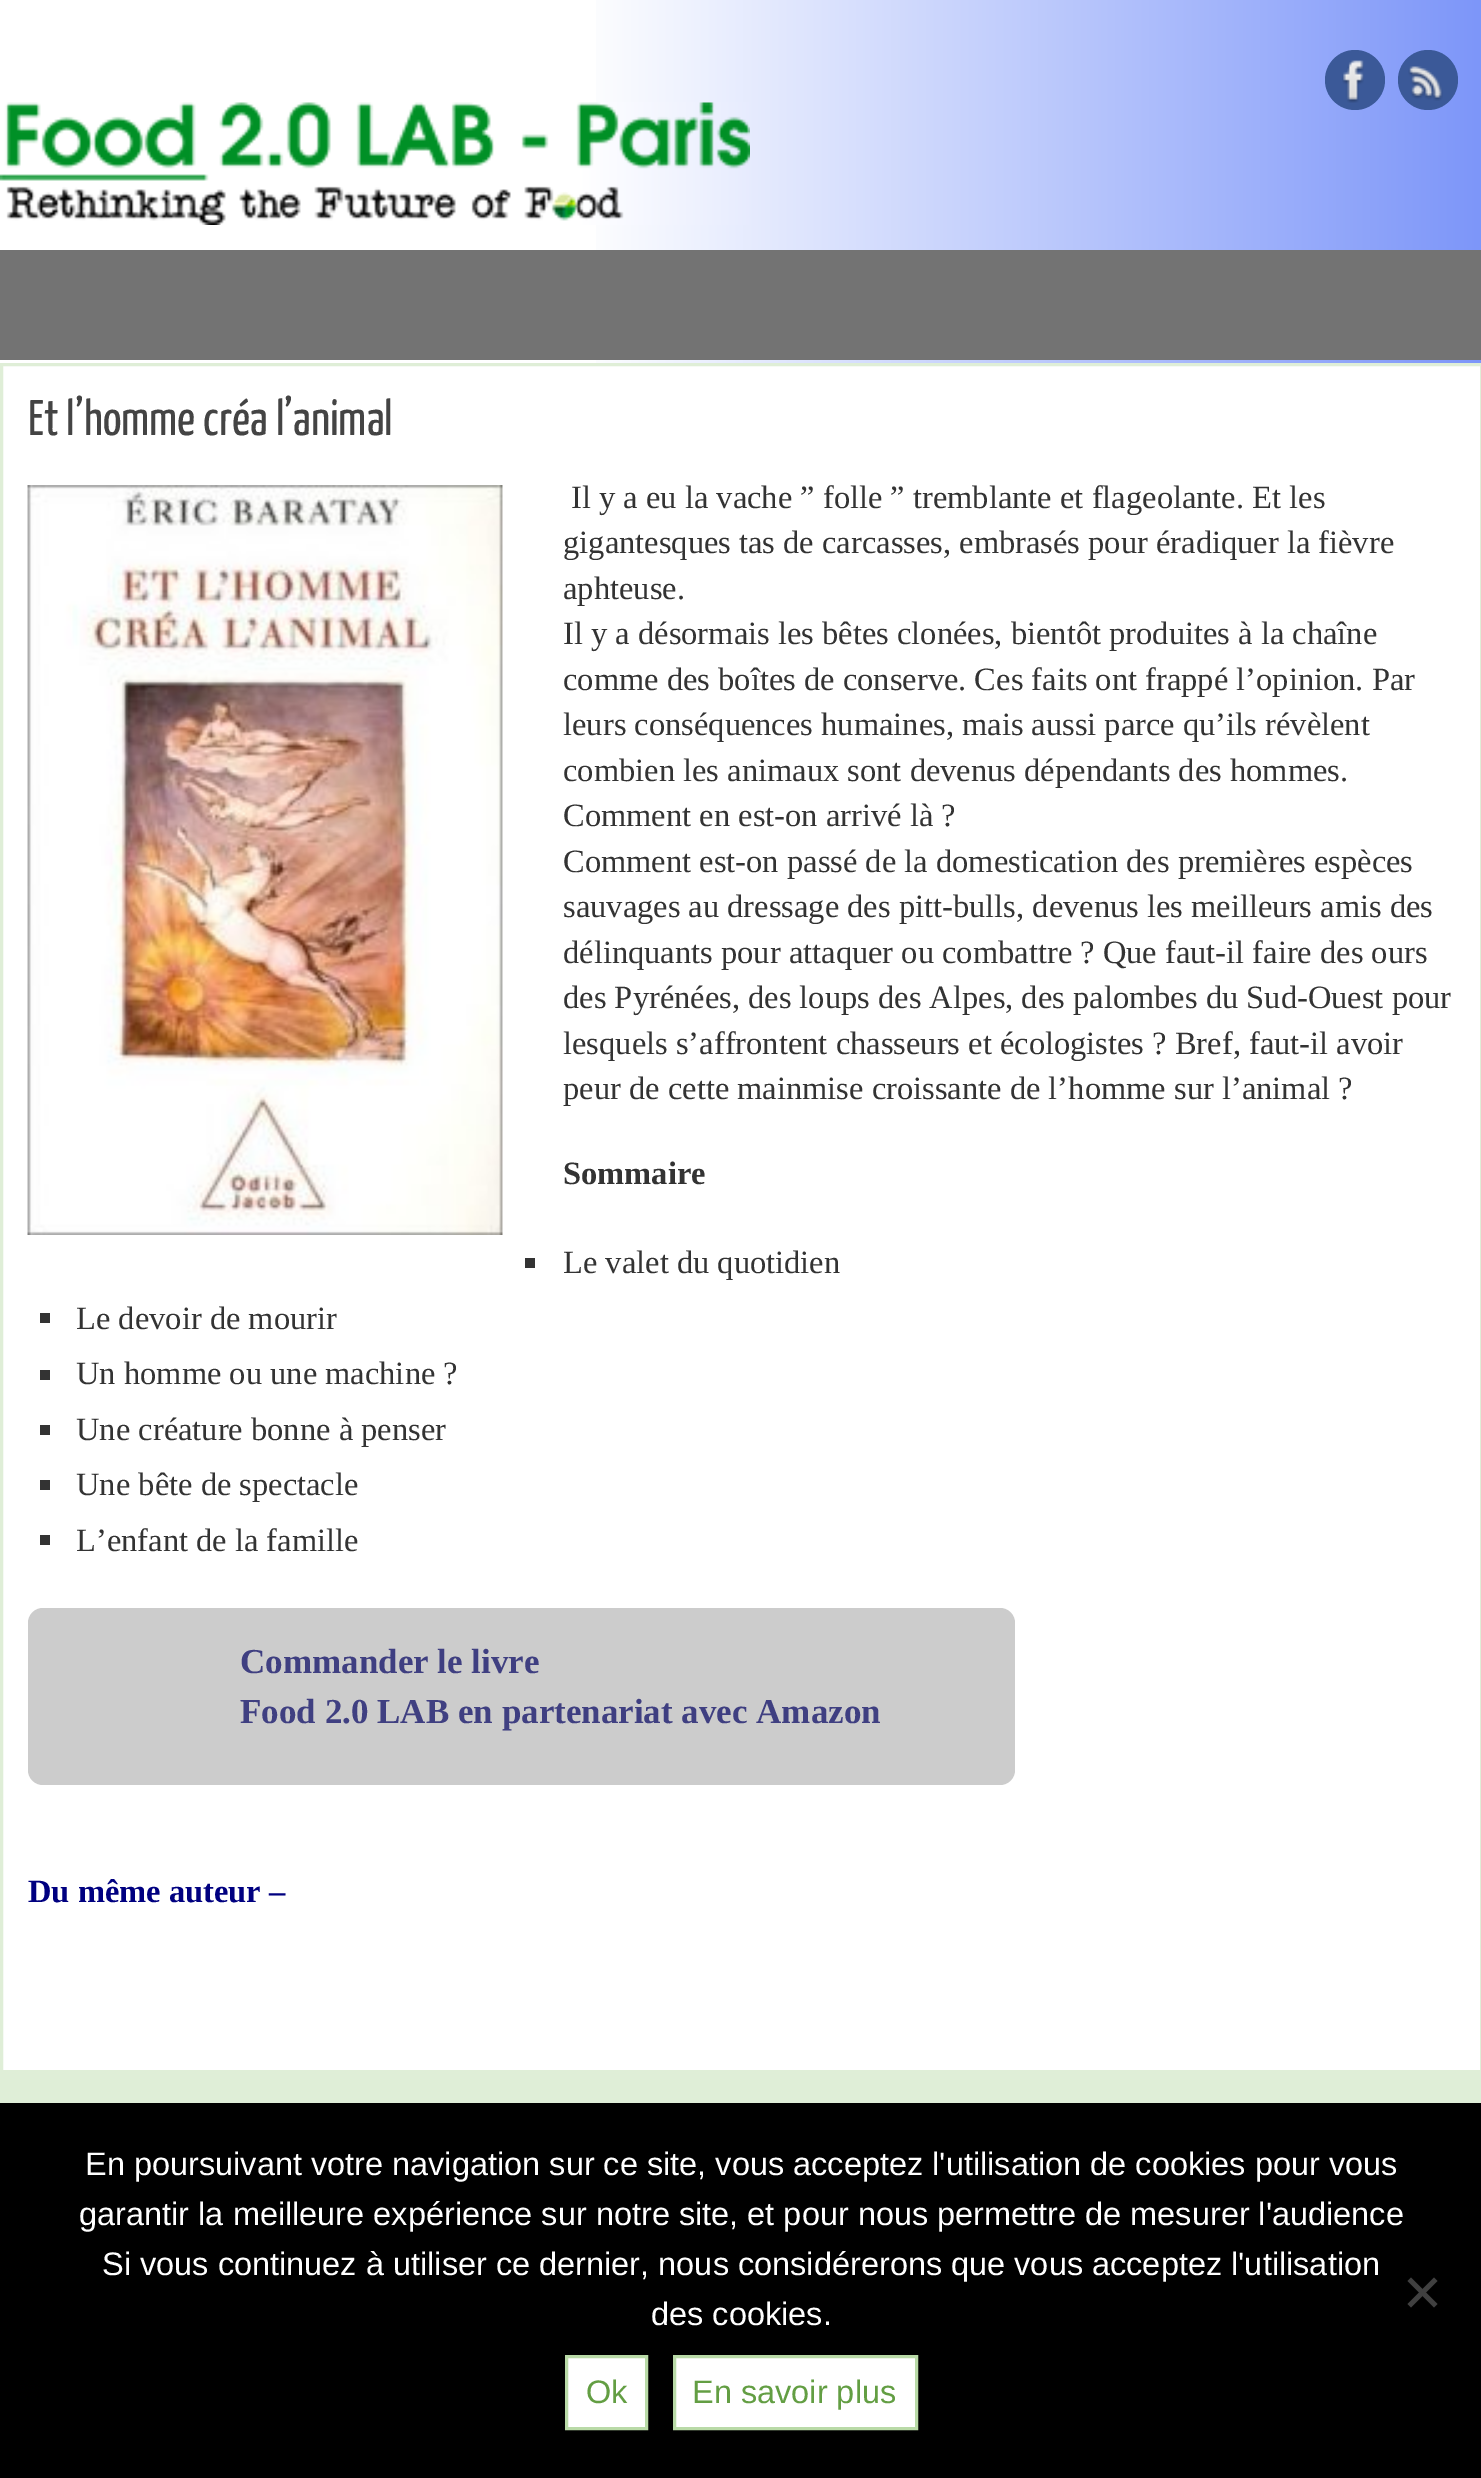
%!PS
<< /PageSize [1481 2478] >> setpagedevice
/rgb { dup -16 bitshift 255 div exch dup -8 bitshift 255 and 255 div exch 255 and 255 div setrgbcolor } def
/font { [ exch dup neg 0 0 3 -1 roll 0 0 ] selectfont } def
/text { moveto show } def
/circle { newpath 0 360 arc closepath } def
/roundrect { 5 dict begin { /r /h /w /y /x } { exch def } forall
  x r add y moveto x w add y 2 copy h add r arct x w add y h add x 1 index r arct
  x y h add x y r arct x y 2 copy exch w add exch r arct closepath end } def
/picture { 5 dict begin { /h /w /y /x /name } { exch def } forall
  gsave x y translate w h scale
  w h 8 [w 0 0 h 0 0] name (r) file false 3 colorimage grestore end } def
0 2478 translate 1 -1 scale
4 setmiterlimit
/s1 { /YanoneKaffeesatz-Regular 50 font 16#444444 rgb } def
/s2 { /LiberationSerif-Regular 32.5 font 16#333333 rgb } def
/s3 { /LiberationSerif-Bold 32.5 font 16#333333 rgb } def
/s4 { /LiberationSerif-Bold 35 font 16#3F3F81 rgb } def
/s5 { /LiberationSerif-Bold 32.5 font 16#000080 rgb } def
/s6 { /LiberationSans-Regular 32.5 font 16#FFFFFF rgb } def
/s7 { /LiberationSans-Regular 32.5 font 16#639E43 rgb } def
16#FFFFFF rgb
0 0 1481 2478 rectfill
gsave 596 0 moveto 1481 0 lineto 1481 363 lineto 596 363 lineto closepath clip newpath
<< /ShadingType 2 /ColorSpace /DeviceRGB /Coords [0 181 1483 181] /Extend [true true] /Function << /FunctionType 3 /Domain [0 1] /Functions [<< /FunctionType 2 /Domain [0 1] /C0 [1 1 1] /C1 [1 1 1] /N 1 >> << /FunctionType 2 /Domain [0 1] /C0 [1 1 1] /C1 [0.49 0.588 0.976] /N 1 >>] /Bounds [0.39] /Encode [0 1 0 1] >> >> shfill grestore
16#3B5998 rgb
1355 80 30 circle fill
(pic1.raw) 1342 60 22 43 picture
1428 80 30 circle fill
(pic2.raw) 1408 66 35 35 picture
(pic3.raw) 0 102 750 123 picture
16#737373 rgb
0 250 1481 110 rectfill
16#DFEED7 rgb
3 setlinewidth
1.5 364.5 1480 1707 rectstroke
s1
(Et l’homme créa l’animal) 28 435 text
(pic4.raw) 27 485 476 750 picture
s2
(Il y a eu la vache ” folle ” tremblante et flageolante. Et les) 571 508 text
(gigantesques tas de carcasses, embrasés pour éradiquer la fièvre) 563 553 text
(aphteuse.) 563 599 text
(Il y a désormais les bêtes clonées, bientôt produites à la chaîne) 563 644 text
(comme des boîtes de conserve. Ces faits ont frappé l’opinion. Par) 563 690 text
(leurs conséquences humaines, mais aussi parce qu’ils révèlent) 563 735 text
(combien les animaux sont devenus dépendants des hommes.) 563 781 text
(Comment en est-on arrivé là ?) 563 826 text
(Comment est-on passé de la domestication des premières espèces) 563 872 text
(sauvages au dressage des pitt-bulls, devenus les meilleurs amis des) 563 917 text
(délinquants pour attaquer ou combattre ? Que faut-il faire des ours) 563 963 text
(des Pyrénées, des loups des Alpes, des palombes du Sud-Ouest pour) 563 1008 text
(lesquels s’affrontent chasseurs et écologistes ? Bref, faut-il avoir) 563 1054 text
(peur de cette mainmise croissante de l’homme sur l’animal ?) 563 1099 text
s3
(Sommaire) 563 1184 text
525 1258 10 10 rectfill
s2
(Le valet du quotidien) 563 1273 text
40 1313 10 10 rectfill
(Le devoir de mourir) 76 1329 text
40 1370 10 10 rectfill
(Un homme ou une machine ?) 76 1384 text
40 1425 10 10 rectfill
(Une créature bonne à penser) 76 1440 text
40 1480 10 10 rectfill
(Une bête de spectacle) 76 1495 text
40 1535 10 10 rectfill
(L’enfant de la famille) 76 1551 text
16#CCCCCC rgb
28 1608 987 177 15 roundrect fill
s4
(Commander le livre) 240 1673 text
(Food 2.0 LAB en partenariat avec Amazon) 240 1723 text
s5
(Du même auteur –) 28 1902 text
16#DFEED7 rgb
0 2073 1481 30 rectfill
16#000000 rgb
0 2103 1481 375 rectfill
s6
(En poursuivant votre navigation sur ce site, vous acceptez l'utilisation de cookies pour vous) 85 2175 text
(garantir la meilleure expérience sur notre site, et pour nous permettre de mesurer l'audience) 79 2225 text
(Si vous continuez à utiliser ce dernier, nous considérerons que vous acceptez l'utilisation) 102 2275 text
(des cookies.) 651 2325 text
16#404040 rgb
1434 2277.5 moveto 1437.5 2281 lineto 1411 2307.5 lineto 1407.5 2304 lineto closepath fill
1407.5 2281 moveto 1411 2277.5 lineto 1437.5 2304 lineto 1434 2307.5 lineto closepath fill
16#FFFFFF rgb
566.5 2356.5 moveto 646.5 2356.5 lineto 646.5 2428.5 lineto 566.5 2428.5 lineto closepath gsave fill grestore
16#B9DAA7 rgb
stroke
s7
(Ok) 586 2403 text
16#FFFFFF rgb
674.5 2356.5 moveto 916.5 2356.5 lineto 916.5 2428.5 lineto 674.5 2428.5 lineto closepath gsave fill grestore
16#B9DAA7 rgb
stroke
s7
(En savoir plus) 692 2403 text
showpage
